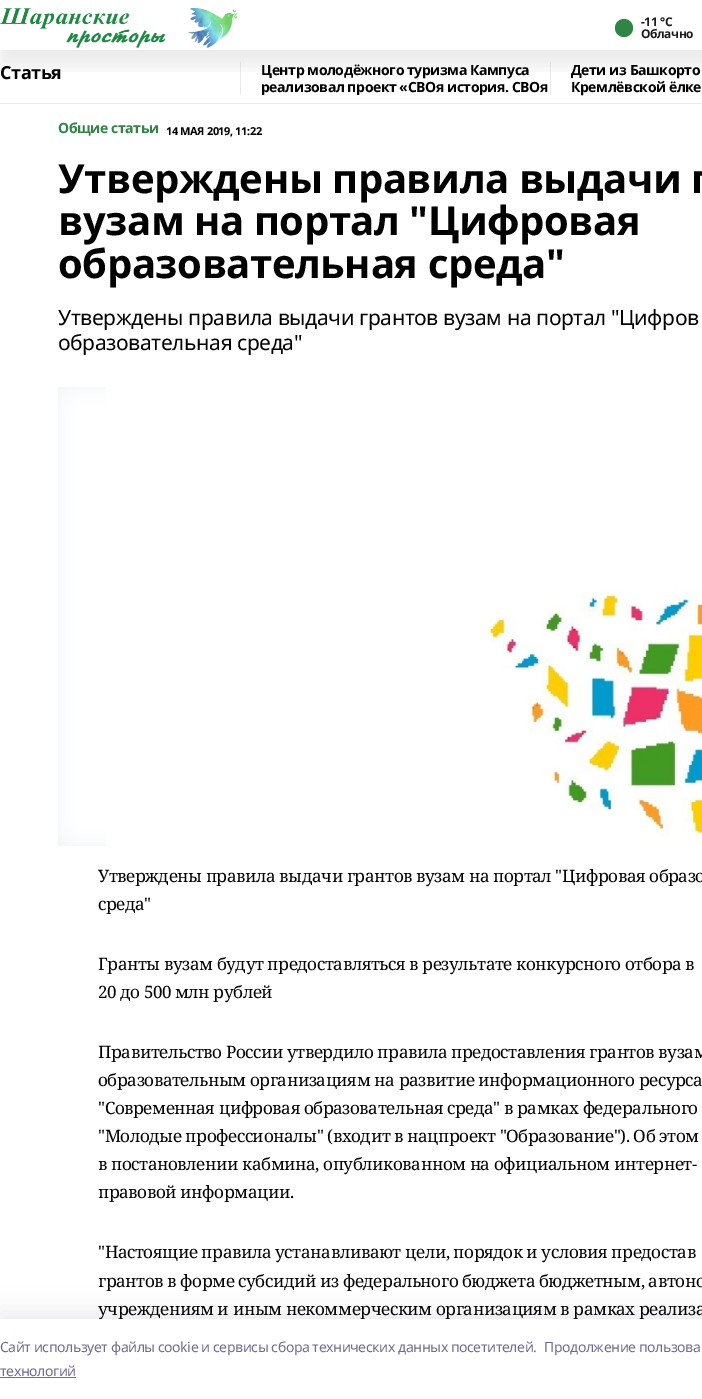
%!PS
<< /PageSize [702 1399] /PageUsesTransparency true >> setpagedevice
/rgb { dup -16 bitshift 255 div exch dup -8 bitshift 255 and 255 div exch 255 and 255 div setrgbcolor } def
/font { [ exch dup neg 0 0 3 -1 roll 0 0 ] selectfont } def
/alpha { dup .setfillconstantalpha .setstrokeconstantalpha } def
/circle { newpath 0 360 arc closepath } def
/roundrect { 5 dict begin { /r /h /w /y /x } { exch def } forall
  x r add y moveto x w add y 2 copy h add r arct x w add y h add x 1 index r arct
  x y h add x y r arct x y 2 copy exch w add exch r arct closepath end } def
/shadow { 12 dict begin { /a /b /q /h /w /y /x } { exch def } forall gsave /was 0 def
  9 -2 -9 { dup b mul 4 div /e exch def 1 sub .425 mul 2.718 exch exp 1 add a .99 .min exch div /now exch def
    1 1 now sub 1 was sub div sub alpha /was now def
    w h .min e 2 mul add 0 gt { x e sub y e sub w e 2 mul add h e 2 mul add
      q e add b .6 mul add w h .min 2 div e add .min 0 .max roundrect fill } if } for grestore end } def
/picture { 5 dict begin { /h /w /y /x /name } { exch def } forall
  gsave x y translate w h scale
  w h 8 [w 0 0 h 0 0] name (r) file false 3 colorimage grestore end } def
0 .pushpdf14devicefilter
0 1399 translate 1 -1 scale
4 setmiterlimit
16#FFFFFF rgb
0 0 702 1399 rectfill
16#EAEAEA rgb
240 62 1 33 rectfill
550 62 1 33 rectfill
gsave
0 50 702 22 rectclip
16#000000 rgb
0 15 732 50 0 10 0.08 shadow
grestore
(pic1.raw) 0 8 238 40 picture
16#308446 rgb
624 28 9 circle fill
/NotoSans-Bold 12 font
16#1A1A1A rgb
641 26 moveto -0.42 0 (-11 °С) ashow
641 38 moveto -0.42 0 (Облачно) ashow
16#EAEAEA rgb
0 103 702 1 rectfill
/NotoSans-Bold 18 font
16#000000 rgb
0 79 moveto -0.42 0 (Статья) ashow
/NotoSans-Bold 14 font
261 75 moveto -0.42 0 (Центр молодёжного туризма Кампуса) ashow
gsave
241 62 309 33 rectclip
261 92 moveto -0.42 0 (реализовал проект «СВОя история. СВОя) ashow
grestore
571 75 moveto -0.42 0 (Дети из Башкорто) ashow
571 92 moveto -0.42 0 (Кремлёвской ёлке) ashow
16#308446 rgb
58 133 moveto -0.42 0 (Общие статьи) ashow
/NotoSans-Bold 11 font
16#000000 rgb
166 135 moveto -0.42 0 (14 МАЯ 2019, 11:22) ashow
/NotoSans-Bold 40 font
58 193 moveto -0.42 0 (Утверждены правила выдачи г) ashow
58 235 moveto -0.42 0 (вузам на портал "Цифровая) ashow
58 278 moveto -0.42 0 (образовательная среда") ashow
/NotoSans-Regular 21 font
58 325 moveto -0.42 0 (Утверждены правила выдачи грантов вузам на портал "Цифров) ashow
58 350 moveto -0.42 0 (образовательная среда") ashow
16#EDF2F7 rgb
58 387 48 459 rectfill
(pic2.raw) 58 387 48 459 picture
(pic3.raw) 106 387 596 459 picture
/NotoSerif-Regular 17 font
16#000000 rgb
98 882 moveto -0.42 0 (Утверждены правила выдачи грантов вузам на портал "Цифровая образо) ashow
98 910 moveto -0.42 0 (среда") ashow
98 970 moveto -0.42 0 (Гранты вузам будут предоставляться в результате конкурсного отбора в) ashow
98 998 moveto -0.42 0 (20 до 500 млн рублей) ashow
98 1058 moveto -0.42 0 (Правительство России утвердило правила предоставления грантов вузам) ashow
98 1086 moveto -0.42 0 (образовательным организациям на развитие информационного ресурса) ashow
98 1114 moveto -0.42 0 ("Современная цифровая образовательная среда" в рамках федерального) ashow
98 1142 moveto -0.42 0 ("Молодые профессионалы" \(входит в нацпроект "Образование"\). Об этом) ashow
98 1170 moveto -0.42 0 (в постановлении кабмина, опубликованном на официальном интернет-) ashow
98 1198 moveto -0.42 0 (правовой информации.) ashow
98 1258 moveto -0.42 0 ("Настоящие правила устанавливают цели, порядок и условия предостав) ashow
98 1287 moveto -0.42 0 (грантов в форме субсидий из федерального бюджета бюджетным, автоно) ashow
98 1315 moveto -0.42 0 (учреждениям и иным некоммерческим организациям в рамках реализа) ashow
16#14142B rgb
0 1313 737 80 0 11.5 0.08 shadow
16#FFFFFF rgb
0 1319 702 80 rectfill
/NotoSans-Regular 14 font
16#6F6C90 rgb
0 1352 moveto -0.42 0 (Cайт использует файлы cookie и сервисы сбора технических данных посетителей.) ashow
544 1352 moveto -0.42 0 (Продолжение пользова) ashow
0 1376 moveto -0.42 0 (технологий) ashow
0 1377 76 1 rectfill
.poppdf14devicefilter showpage
